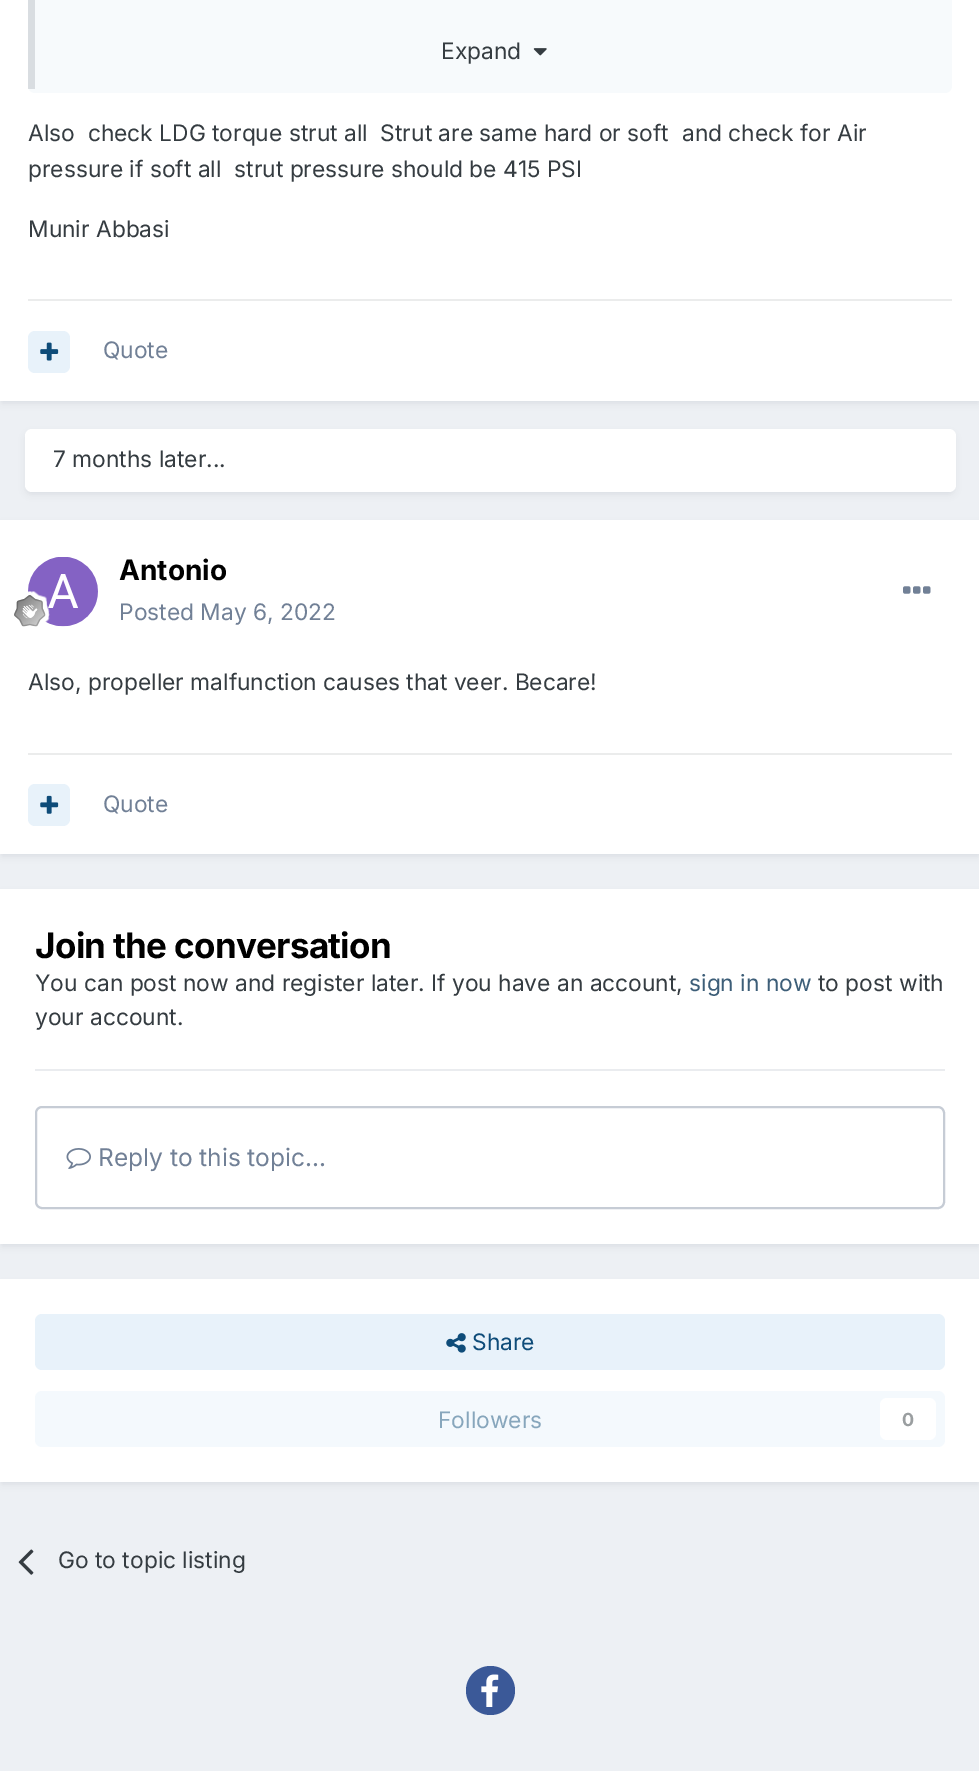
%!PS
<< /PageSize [979 1771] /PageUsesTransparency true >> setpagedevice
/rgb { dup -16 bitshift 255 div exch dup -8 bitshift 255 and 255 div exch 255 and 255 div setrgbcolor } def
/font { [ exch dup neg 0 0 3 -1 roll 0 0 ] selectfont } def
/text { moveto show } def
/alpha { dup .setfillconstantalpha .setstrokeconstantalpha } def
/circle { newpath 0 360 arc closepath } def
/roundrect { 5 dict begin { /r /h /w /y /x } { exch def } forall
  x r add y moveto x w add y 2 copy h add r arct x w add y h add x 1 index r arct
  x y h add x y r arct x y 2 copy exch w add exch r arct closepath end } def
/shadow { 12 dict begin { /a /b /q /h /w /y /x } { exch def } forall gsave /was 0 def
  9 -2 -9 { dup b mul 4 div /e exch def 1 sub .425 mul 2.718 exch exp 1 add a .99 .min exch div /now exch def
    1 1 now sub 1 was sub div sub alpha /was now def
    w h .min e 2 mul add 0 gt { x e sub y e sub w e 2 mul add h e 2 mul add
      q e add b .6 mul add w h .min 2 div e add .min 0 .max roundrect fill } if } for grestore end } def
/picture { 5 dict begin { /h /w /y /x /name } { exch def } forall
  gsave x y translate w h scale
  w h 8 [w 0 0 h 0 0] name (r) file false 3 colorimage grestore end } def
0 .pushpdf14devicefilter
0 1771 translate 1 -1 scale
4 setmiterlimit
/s1 { /Inter-Regular 22.75 font 16#353C41 rgb } def
/s2 { /Inter-Regular 22.75 font 16#718096 rgb } def
/s3 { /Inter-Bold 28 font 16#000000 rgb } def
/s4 { /Inter-Regular 22.75 font 16#3D5E78 rgb } def
/s5 { /Inter-Regular 24.5 font 16#718096 rgb } def
/s6 { /Inter-Regular 22.75 font 16#0E4C79 rgb } def
/s7 { /Inter-Regular 22.75 font 16#87A6BC rgb } def
/s8 { /Inter-Bold 18 font 16#9A9EA0 rgb } def
16#EDF0F4 rgb
0 0 979 1771 rectfill
16#2D3748 rgb
2 -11 976 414 0 3.5 0.1 shadow
16#FFFFFF rgb
0 0 979 401 rectfill
16#F7FAFC rgb
28 -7 924 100 7 roundrect fill
0.15 alpha
16#2D3748 rgb
28 0 7 89 rectfill
1 alpha
s1
(Expand) 441 59 text
(pic1.raw) 533 48 14 8 picture
(Also  check LDG torque strut all  Strut are same hard or soft  and check for Air) 28 141 text
(pressure if soft all  strut pressure should be 415 PSI) 28 177 text
(Munir Abbasi) 28 237 text
16#EBECEC rgb
28 299 924 2 rectfill
16#E8F2FA rgb
28 331 42 42 7 roundrect fill
(pic2.raw) 40 342 19 19 picture
s2
(Quote) 103 358 text
16#2D3748 rgb
26 434 928 60 5 3.5 0.1 shadow
16#FFFFFF rgb
25 429 931 63 7 roundrect fill
s1
(7 months later...) 53 467 text
16#2D3748 rgb
2 525 976 331 0 3.5 0.1 shadow
16#FFFFFF rgb
0 520 979 334 rectfill
(pic3.raw) 28 557 70 70 picture
(pic4.raw) 14 591 36 36 picture
s3
(Antonio) 119 580 text
s2
(Posted May 6, 2022) 119 620 text
(pic5.raw) 903 586 28 8 picture
s1
(Also, propeller malfunction causes that veer. Becare!) 28 690 text
16#EBECEC rgb
28 753 924 2 rectfill
16#E8F2FA rgb
28 784 42 42 7 roundrect fill
(pic6.raw) 40 795 19 19 picture
s2
(Quote) 103 812 text
16#2D3748 rgb
2 894 976 352 0 3.5 0.1 shadow
16#FFFFFF rgb
0 889 979 355 rectfill
16#EAECEF rgb
35 1069 910 2 rectfill
/Inter-Bold 35 font
16#000000 rgb
35 958 moveto -0.7 0 (Join the conversation) ashow
s1
(You can post now and register later. If you have an account,) 35 991 text
s4
(sign in now) 689 991 text
s1
(to post with) 818 991 text
(your account.) 35 1025 text
16#C6CCD5 rgb
2 setlinewidth
36 1107 908 101 6 roundrect stroke
(pic7.raw) 66 1148 25 21 picture
s5
(Reply to this topic...) 98 1166 text
16#2D3748 rgb
2 1285 976 199 0 3.5 0.1 shadow
16#FFFFFF rgb
0 1279 979 203 rectfill
16#E8F2FA rgb
35 1314 910 56 7 roundrect fill
(pic8.raw) 446 1333 20 20 picture
s6
(Share) 472 1350 text
16#F4F9FD rgb
35 1391 910 56 7 roundrect fill
s7
(Followers) 438 1428 text
16#FFFFFF rgb
880 1398 56 42 7 roundrect fill
s8
(0) 902 1426 text
(pic9.raw) 18 1549 16 26 picture
s1
(Go to topic listing) 58 1568 text
16#3B5998 rgb
490.5 1690.5 24.5 circle fill
(pic10.raw) 481 1674 18 33 picture
.poppdf14devicefilter showpage
